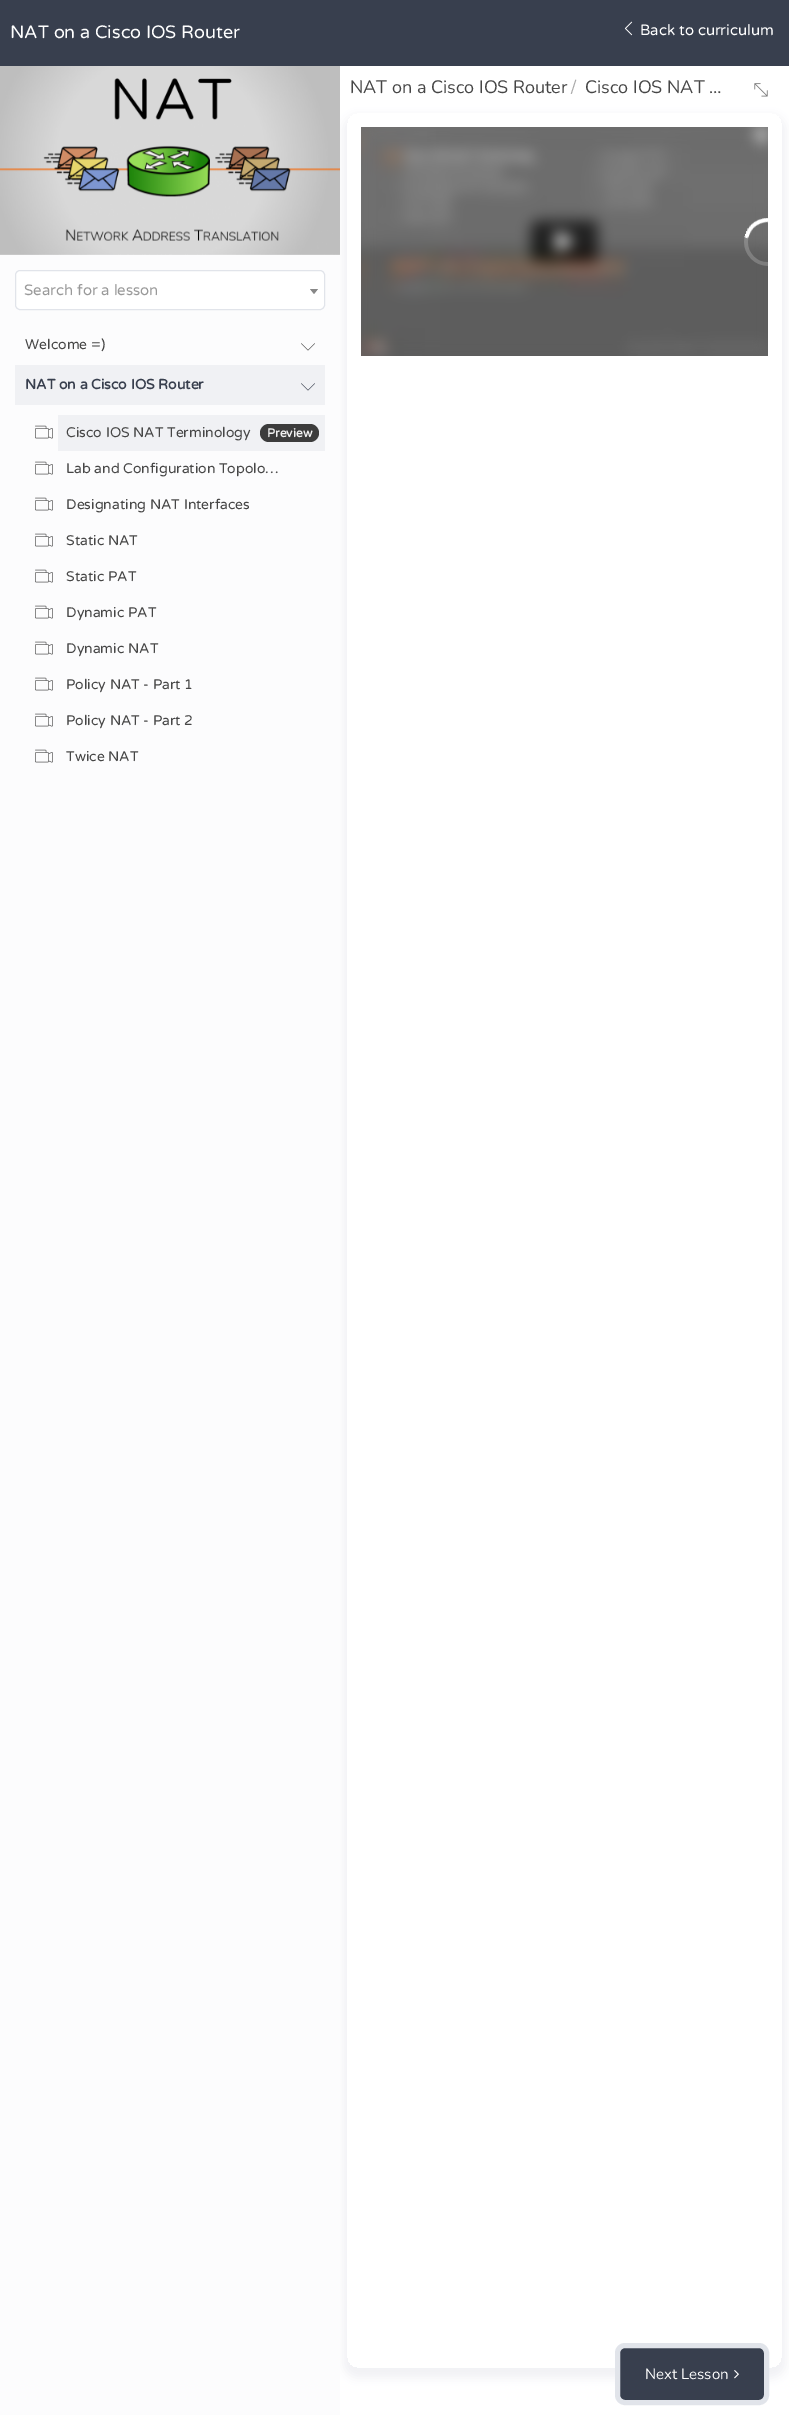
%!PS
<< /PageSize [789 2415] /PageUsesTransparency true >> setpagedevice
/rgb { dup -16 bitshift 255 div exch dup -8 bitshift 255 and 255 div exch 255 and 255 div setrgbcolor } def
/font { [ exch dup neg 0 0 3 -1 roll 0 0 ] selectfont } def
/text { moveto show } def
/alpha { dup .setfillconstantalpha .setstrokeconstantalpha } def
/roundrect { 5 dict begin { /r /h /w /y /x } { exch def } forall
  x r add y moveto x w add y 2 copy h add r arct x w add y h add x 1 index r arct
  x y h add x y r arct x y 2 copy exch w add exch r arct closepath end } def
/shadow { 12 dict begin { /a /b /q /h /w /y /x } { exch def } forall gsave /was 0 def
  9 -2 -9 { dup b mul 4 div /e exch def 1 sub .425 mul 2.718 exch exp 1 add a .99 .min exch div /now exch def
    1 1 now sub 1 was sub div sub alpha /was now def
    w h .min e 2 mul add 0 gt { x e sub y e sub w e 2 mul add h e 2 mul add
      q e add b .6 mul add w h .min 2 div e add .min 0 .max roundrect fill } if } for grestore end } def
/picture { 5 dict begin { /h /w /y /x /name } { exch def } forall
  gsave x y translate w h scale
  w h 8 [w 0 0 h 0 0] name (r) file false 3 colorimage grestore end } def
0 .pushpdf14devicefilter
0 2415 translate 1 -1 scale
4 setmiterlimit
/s1 { /VarelaRound-Regular 18 font 16#FFFFFF rgb } def
/s2 { /VarelaRound-Regular 15 font 16#FFFFFF rgb } def
/s3 { /VarelaRound-Regular 15 font 16#999999 rgb } def
/s4 { /VarelaRound-Regular 14 font 16#464646 rgb } def
/s5 { /VarelaRound-Bold 14 font 16#383F4E rgb } def
/s6 { /VarelaRound-Bold 12 font 16#F2F2F2 rgb } def
/s7 { /Nunito-Regular 18 font 16#464646 rgb } def
/s8 { /Nunito-Regular 18 font 16#ABABAB rgb } def
/s9 { /Nunito-Regular 15 font 16#FFFFFF rgb } def
16#FFFFFF rgb
0 0 789 2415 rectfill
16#383F4E rgb
0 0 789 66 rectfill
s1
(NAT on a Cisco IOS Router) 10 38 text
(pic1.raw) 624 21 9 15 picture
s2
(Back to curriculum) 640 35 text
gsave
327 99 moveto 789 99 lineto 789 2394 lineto 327 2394 lineto closepath 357 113 moveto 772 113 lineto 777.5 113 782 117.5 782 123 curveto 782 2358 lineto 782 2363.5 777.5 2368 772 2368 curveto 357 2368 lineto 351.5 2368 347 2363.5 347 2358 curveto 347 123 lineto 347 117.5 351.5 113 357 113 curveto closepath eoclip newpath
16#F0F1F4 rgb
343 115 443 2263 14 5 1 shadow
grestore
16#FCFCFD rgb
0 254 340 2161 rectfill
(pic2.raw) 0 66 340 189 picture
16#FFFFFF rgb
15.5 270.5 309 39 4.5 roundrect gsave fill grestore
16#E1E4EA rgb
stroke
s3
(Search for a lesson) 24 295 text
16#888888 rgb
310 289 moveto 318 289 lineto 314 294 lineto closepath fill
s4
(Welcome =\)) 25 349 text
(pic3.raw) 301 343 14 8 picture
16#F0F1F4 rgb
15 365 310 40 rectfill
s5
(NAT on a Cisco IOS Router) 25 389 text
(pic4.raw) 301 383 14 8 picture
16#F0F1F4 rgb
58 415 267 36 rectfill
(pic5.raw) 35 425 18 14 picture
s4
(Cisco IOS NAT Terminology) 66 437 text
16#3C3C3C rgb
260 424 59 18 9 roundrect fill
s6
(Preview) 267 437 text
(pic5.raw) 35 461 18 14 picture
s4
(Lab and Configuration Topolo…) 66 473 text
(pic5.raw) 35 497 18 14 picture
(Designating NAT Interfaces) 66 509 text
(pic5.raw) 35 533 18 14 picture
(Static NAT) 66 545 text
(pic5.raw) 35 569 18 14 picture
(Static PAT) 66 581 text
(pic5.raw) 35 605 18 14 picture
(Dynamic PAT) 66 617 text
(pic5.raw) 35 641 18 14 picture
(Dynamic NAT) 66 653 text
(pic5.raw) 35 677 18 14 picture
(Policy NAT - Part 1) 66 689 text
(pic5.raw) 35 713 18 14 picture
(Policy NAT - Part 2) 66 725 text
(pic5.raw) 35 749 18 14 picture
(Twice NAT) 66 761 text
s7
(NAT on a Cisco IOS Router) 350 93 text
s8
(/) 571 93 text
s7
(Cisco IOS NAT …) 585 93 text
(pic6.raw) 754 83 14 14 picture
(pic7.raw) 361 127 407 229 picture
16#383F4E rgb
617.5 2345.5 149 57 7.5 roundrect gsave fill grestore
16#E1E4EA rgb
5 setlinewidth
stroke
s9
(Next Lesson) 645 2379 text
(pic8.raw) 734 2370 5 9 picture
.poppdf14devicefilter showpage
